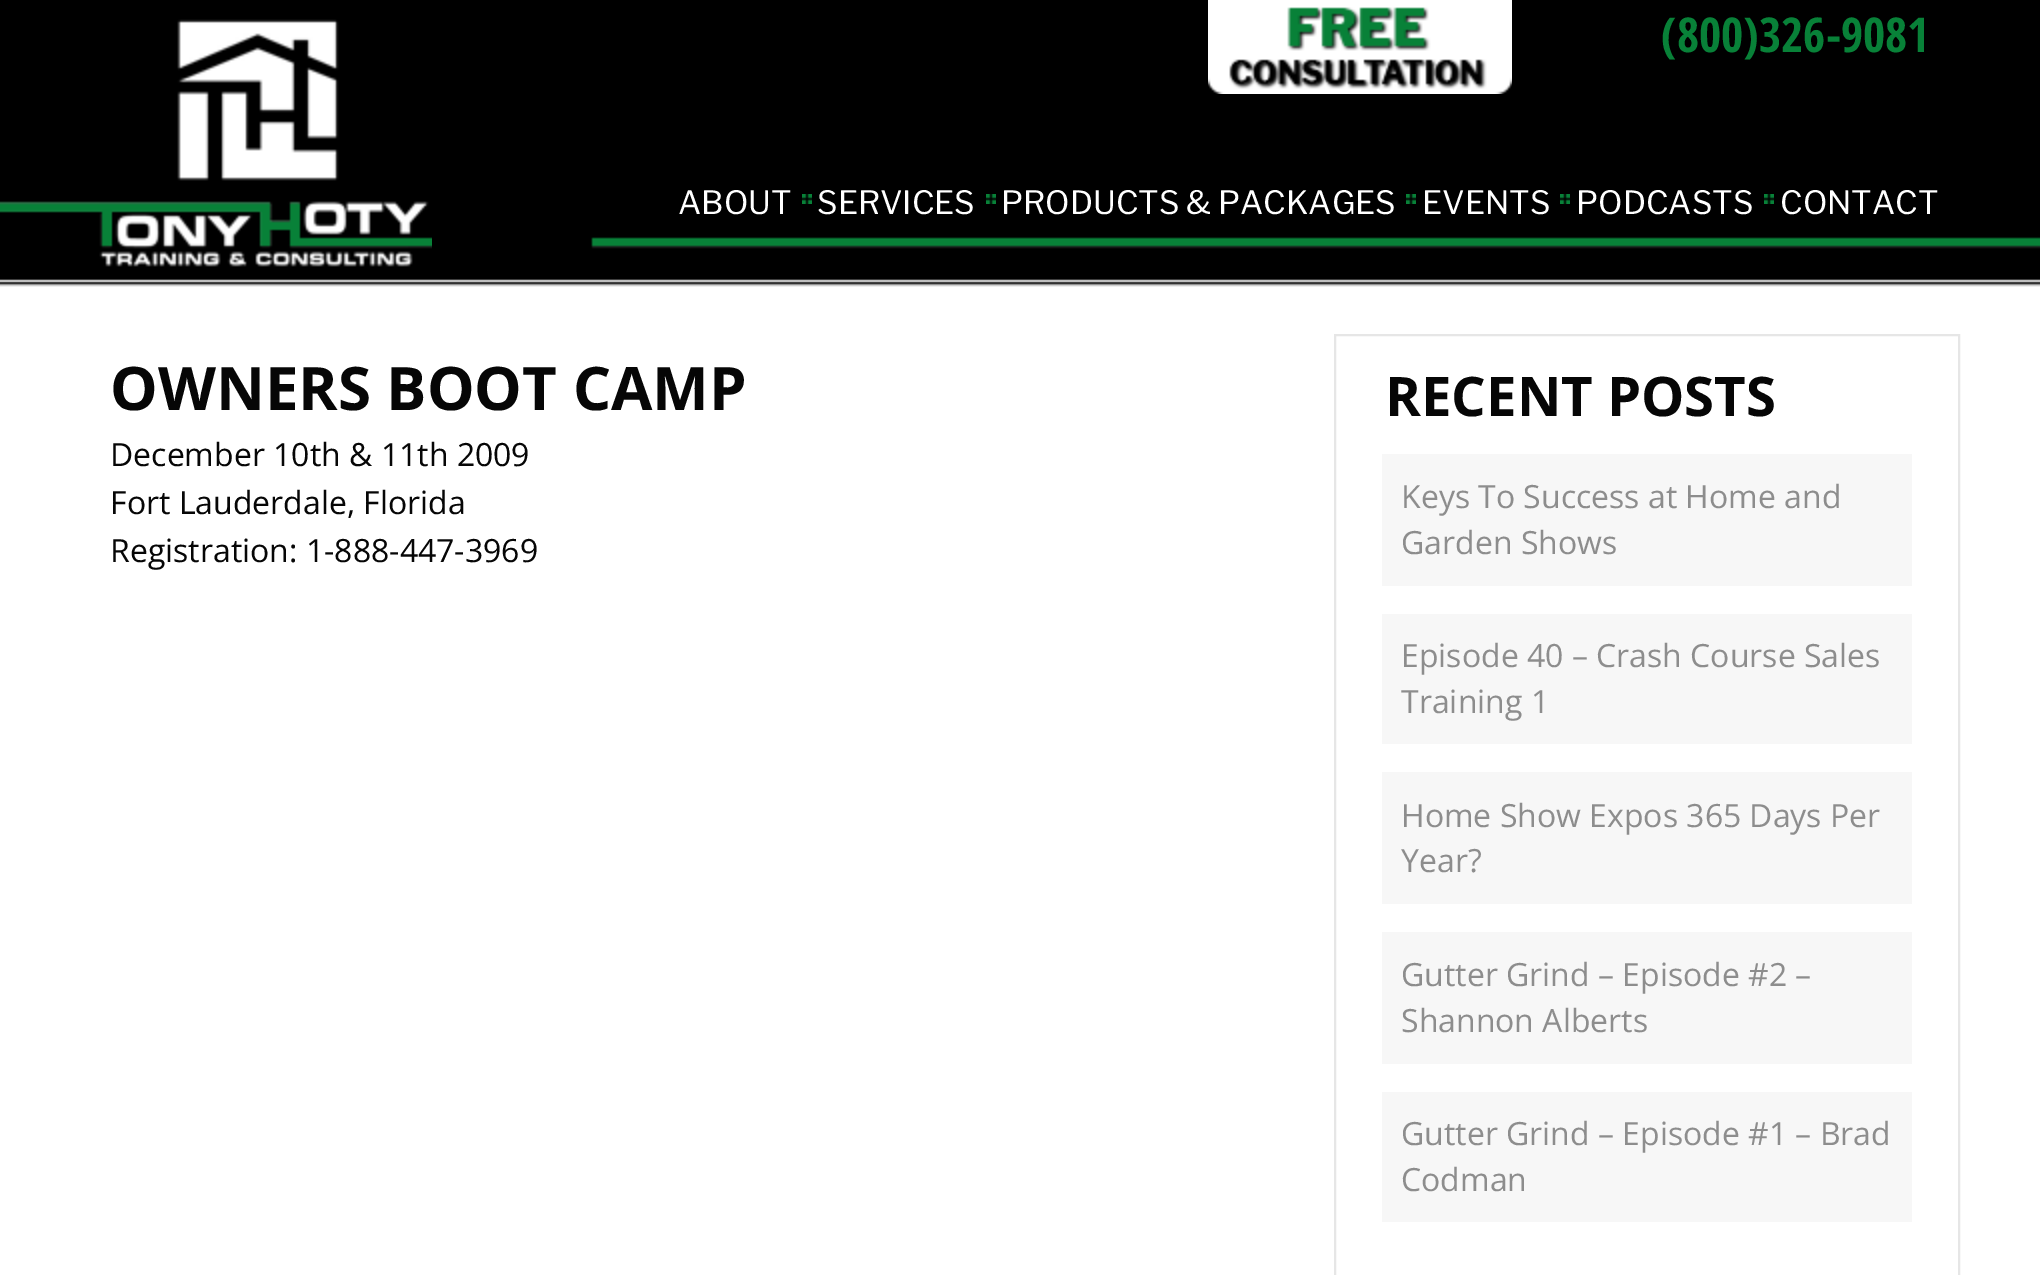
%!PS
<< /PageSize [2040 1275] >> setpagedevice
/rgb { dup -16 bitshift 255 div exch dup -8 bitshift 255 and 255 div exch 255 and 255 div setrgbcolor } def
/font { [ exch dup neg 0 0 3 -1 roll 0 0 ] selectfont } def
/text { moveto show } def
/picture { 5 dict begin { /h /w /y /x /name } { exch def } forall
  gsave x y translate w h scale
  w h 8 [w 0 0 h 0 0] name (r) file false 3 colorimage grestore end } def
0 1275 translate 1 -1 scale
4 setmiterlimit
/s1 { /OpenSansCondensed-Bold 48 font 16#088138 rgb } def
/s2 { /LibreFranklin-Regular 32 font 16#FFFFFF rgb } def
/s3 { /OpenSans-Bold 60 font 16#060606 rgb } def
/s4 { /OpenSans-Regular 32 font 16#060606 rgb } def
/s5 { /OpenSans-Bold 54.5 font 16#060606 rgb } def
/s6 { /OpenSans-Regular 32 font 16#8D8D8D rgb } def
16#FFFFFF rgb
0 0 2040 1275 rectfill
(pic1.raw) 0 0 2040 287 picture
(pic2.raw) 99 19 333 248 picture
(pic3.raw) 1208 0 304 94 picture
s1
(\(800\)326-9081) 1661 52 text
s2
(ABOUT) 678 214 text
(pic4.raw) 802 194 10 10 picture
(SERVICES) 817 214 text
(pic4.raw) 986 194 10 10 picture
(PRODUCTS & PACKAGES) 1001 214 text
(pic4.raw) 1406 194 10 10 picture
(EVENTS) 1422 214 text
(pic4.raw) 1560 194 10 10 picture
(PODCASTS) 1576 214 text
(pic4.raw) 1764 194 10 10 picture
(CONTACT) 1780 214 text
s3
(OWNERS BOOT CAMP) 110 410 text
s4
(December 10th & 11th 2009) 110 466 text
(Fort Lauderdale, Florida) 110 514 text
(Registration: 1-888-447-3969) 110 562 text
16#E6E6E6 rgb
2 setlinewidth
1335 335 624 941 rectstroke
s5
(RECENT POSTS) 1385 416 text
16#F7F7F7 rgb
1382 454 530 132 rectfill
s6
(Keys To Success at Home and) 1401 508 text
(Garden Shows) 1401 554 text
16#F7F7F7 rgb
1382 614 530 130 rectfill
s6
(Episode 40 – Crash Course Sales) 1401 667 text
(Training 1) 1401 713 text
16#F7F7F7 rgb
1382 772 530 132 rectfill
s6
(Home Show Expos 365 Days Per) 1401 827 text
(Year?) 1401 872 text
16#F7F7F7 rgb
1382 932 530 132 rectfill
s6
(Gutter Grind – Episode #2 –) 1401 986 text
(Shannon Alberts) 1401 1032 text
16#F7F7F7 rgb
1382 1092 530 130 rectfill
s6
(Gutter Grind – Episode #1 – Brad) 1401 1145 text
(Codman) 1401 1191 text
showpage
